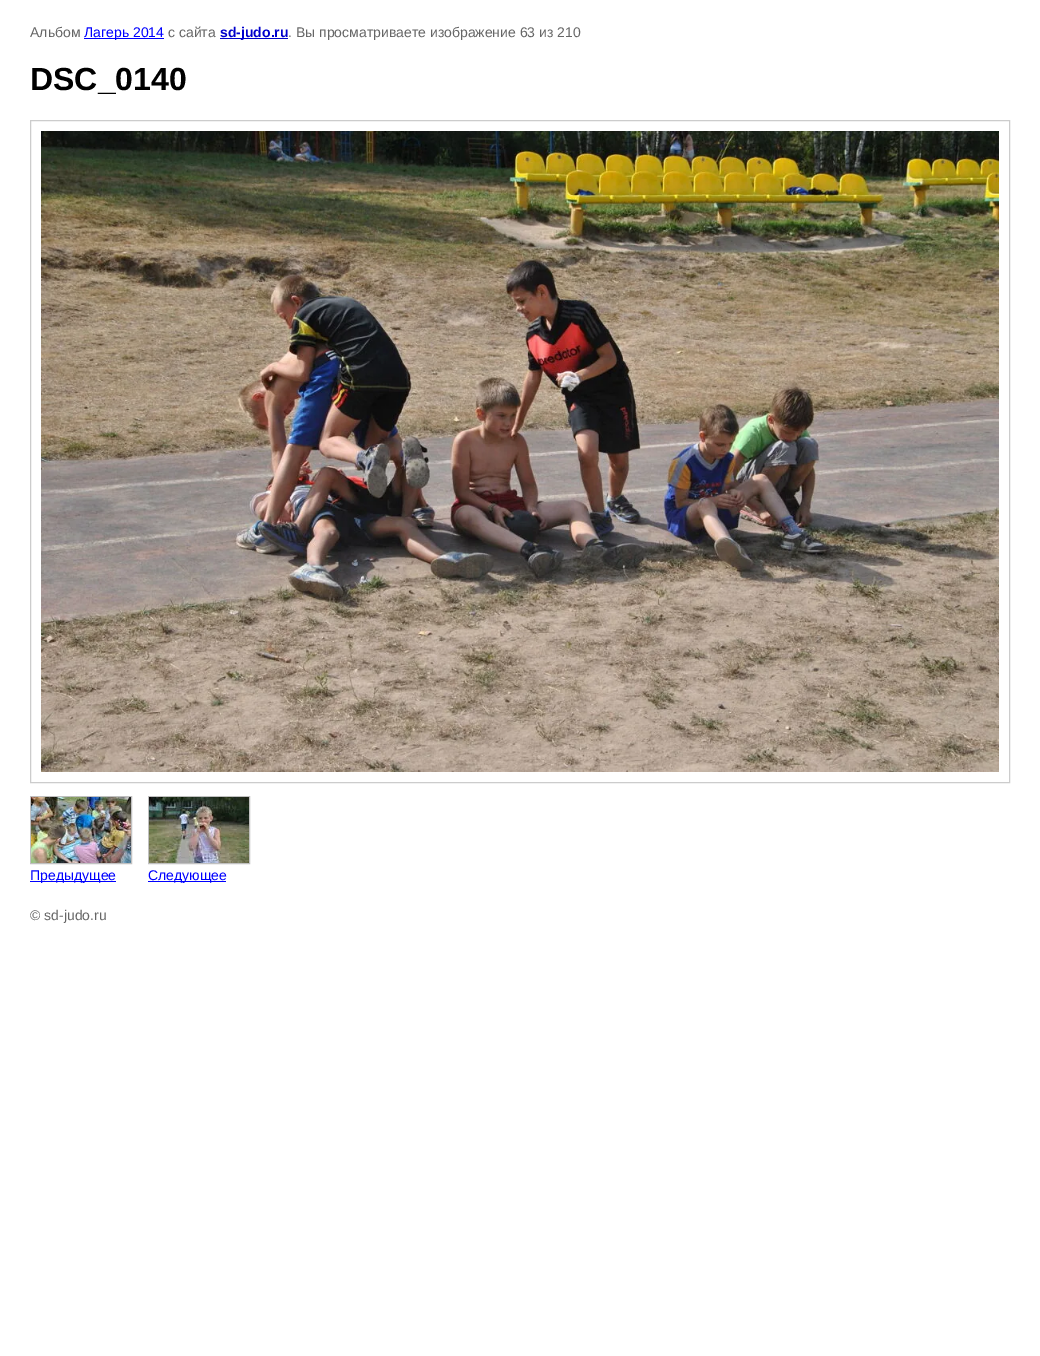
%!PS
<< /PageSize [1040 1356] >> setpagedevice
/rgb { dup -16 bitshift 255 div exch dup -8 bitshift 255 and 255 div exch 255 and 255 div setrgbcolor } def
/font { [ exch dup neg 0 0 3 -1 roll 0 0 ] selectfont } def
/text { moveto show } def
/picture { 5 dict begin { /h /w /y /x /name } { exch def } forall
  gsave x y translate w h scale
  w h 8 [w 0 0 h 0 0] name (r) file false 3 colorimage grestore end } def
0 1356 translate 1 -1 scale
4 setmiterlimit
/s1 { /LiberationSans-Regular 14 font 16#666666 rgb } def
/s2 { /LiberationSans-Regular 14 font 16#0000FF rgb } def
/s3 { /LiberationSans-Bold 14 font 16#0000CC rgb } def
/s4 { /LiberationSans-Bold 32 font 16#000000 rgb } def
16#FFFFFF rgb
0 0 1040 1356 rectfill
s1
(Альбом) 30 37 text
16#0000FF rgb
84 38 80 1 rectfill
(Лагерь 2014) 84 37 text
s1
(с сайта) 168 37 text
16#0000CC rgb
220 38 68 1 rectfill
s3
(sd-judo.ru) 220 37 text
s1
(. Вы просматриваете изображение 63 из 210) 288 37 text
s4
(DSC_0140) 30 90 text
16#CCCCCC rgb
30.5 120.5 979 662 rectstroke
(pic1.raw) 41 131 958 641 picture
16#C0C0C0 rgb
30.5 796.5 101 67 rectstroke
(pic2.raw) 31 797 100 66 picture
16#0000FF rgb
30 881 86 1 rectfill
s2
(Предыдущее) 30 880 text
16#C0C0C0 rgb
148.5 796.5 101 67 rectstroke
(pic3.raw) 149 797 100 66 picture
16#0000FF rgb
148 881 78 1 rectfill
(Следующее) 148 880 text
s1
(© sd-judo.ru) 30 920 text
showpage
